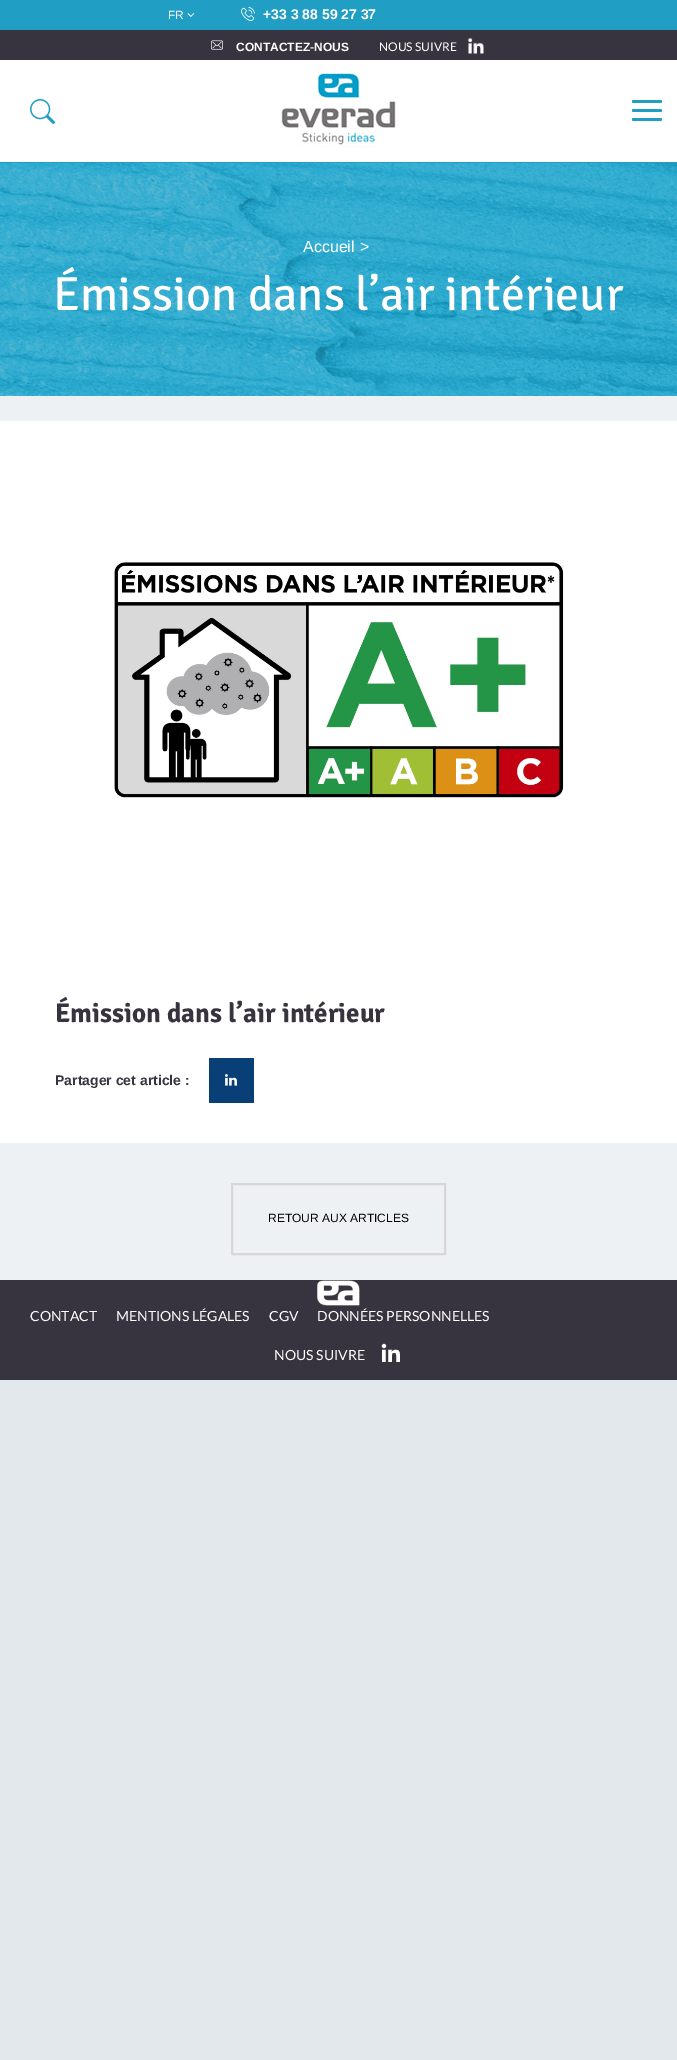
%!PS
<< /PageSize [677 2060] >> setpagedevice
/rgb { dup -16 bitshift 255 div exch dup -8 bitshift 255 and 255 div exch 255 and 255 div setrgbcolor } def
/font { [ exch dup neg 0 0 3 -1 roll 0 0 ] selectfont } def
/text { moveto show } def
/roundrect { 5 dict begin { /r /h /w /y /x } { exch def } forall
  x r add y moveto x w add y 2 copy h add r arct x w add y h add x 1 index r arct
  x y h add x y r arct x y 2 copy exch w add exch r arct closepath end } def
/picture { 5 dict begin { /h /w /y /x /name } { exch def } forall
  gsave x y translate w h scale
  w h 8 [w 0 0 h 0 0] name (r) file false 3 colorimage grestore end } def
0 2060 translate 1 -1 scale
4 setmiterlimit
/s1 { /LiberationSans-Regular 12 font 16#FFFFFF rgb } def
/s2 { /LiberationSans-Bold 14 font 16#FFFFFF rgb } def
/s3 { /LiberationSans-Bold 12 font 16#FFFFFF rgb } def
/s4 { /Lato-Regular 12 font 16#FFFFFF rgb } def
/s5 { /LiberationSans-Regular 16 font 16#FFFFFF rgb } def
/s6 { /SignikaNegative-Regular 48 font 16#FFFFFF rgb } def
/s7 { /SignikaNegative-Bold 27 font 16#38343F rgb } def
/s8 { /LiberationSans-Bold 14 font 16#38343F rgb } def
/s9 { /LiberationSans-Regular 12 font 16#000000 rgb } def
/s10 { /Lato-Regular 14 font 16#FFFFFF rgb } def
16#E2E8EC rgb
0 0 677 2060 rectfill
16#209EC3 rgb
0 0 677 30 rectfill
s1
(FR) 168 19 text
(pic1.raw) 187 13 8 4 picture
(pic2.raw) 241 7 14 14 picture
s2
(+33 3 88 59 27 37) 263 19 text
16#38343F rgb
0 30 677 30 rectfill
(pic3.raw) 211 40 12 10 picture
s3
(CONTACTEZ-NOUS) 236 51 text
s4
(NOUS SUIVRE) 379 51 text
(pic4.raw) 467 37 17 17 picture
0 60 677 102 rectfill
(pic5.raw) 30 99 25 25 picture
(pic6.raw) 281 68 115 80 picture
16#209EC3 rgb
632 100 30 3 1.5 roundrect fill
632 109 30 3 1.5 roundrect fill
632 118 30 3 1.5 roundrect fill
0 162 677 1 rectfill
(pic7.raw) 0 163 677 233 picture
s5
(Accueil) 303 252 text
(>) 360 252 text
s6
(Émission dans l’air intérieur) 53 310 text
16#EDF1F4 rgb
0 396 677 884 rectfill
16#FFFFFF rgb
0 421 677 722 rectfill
(pic8.raw) 114 562 450 236 picture
s7
(Émission dans l’air intérieur) 55 1022 text
s8
(Partager cet article :) 55 1085 text
16#083F77 rgb
209 1058 45 45 rectfill
(pic9.raw) 225 1074 12 12 picture
16#D7D6D9 rgb
2 setlinewidth
232 1184 213 70 rectstroke
s9
(RETOUR AUX ARTICLES) 268 1222 text
16#38343F rgb
0 1280 677 100 rectfill
(pic10.raw) 317 1280 43 26 picture
s10
(CONTACT) 30 1321 text
(MENTIONS LÉGALES) 116 1321 text
(CGV) 269 1321 text
(DONNÉES PERSONNELLES) 317 1321 text
(NOUS SUIVRE) 274 1360 text
(pic11.raw) 381 1343 19 19 picture
showpage
